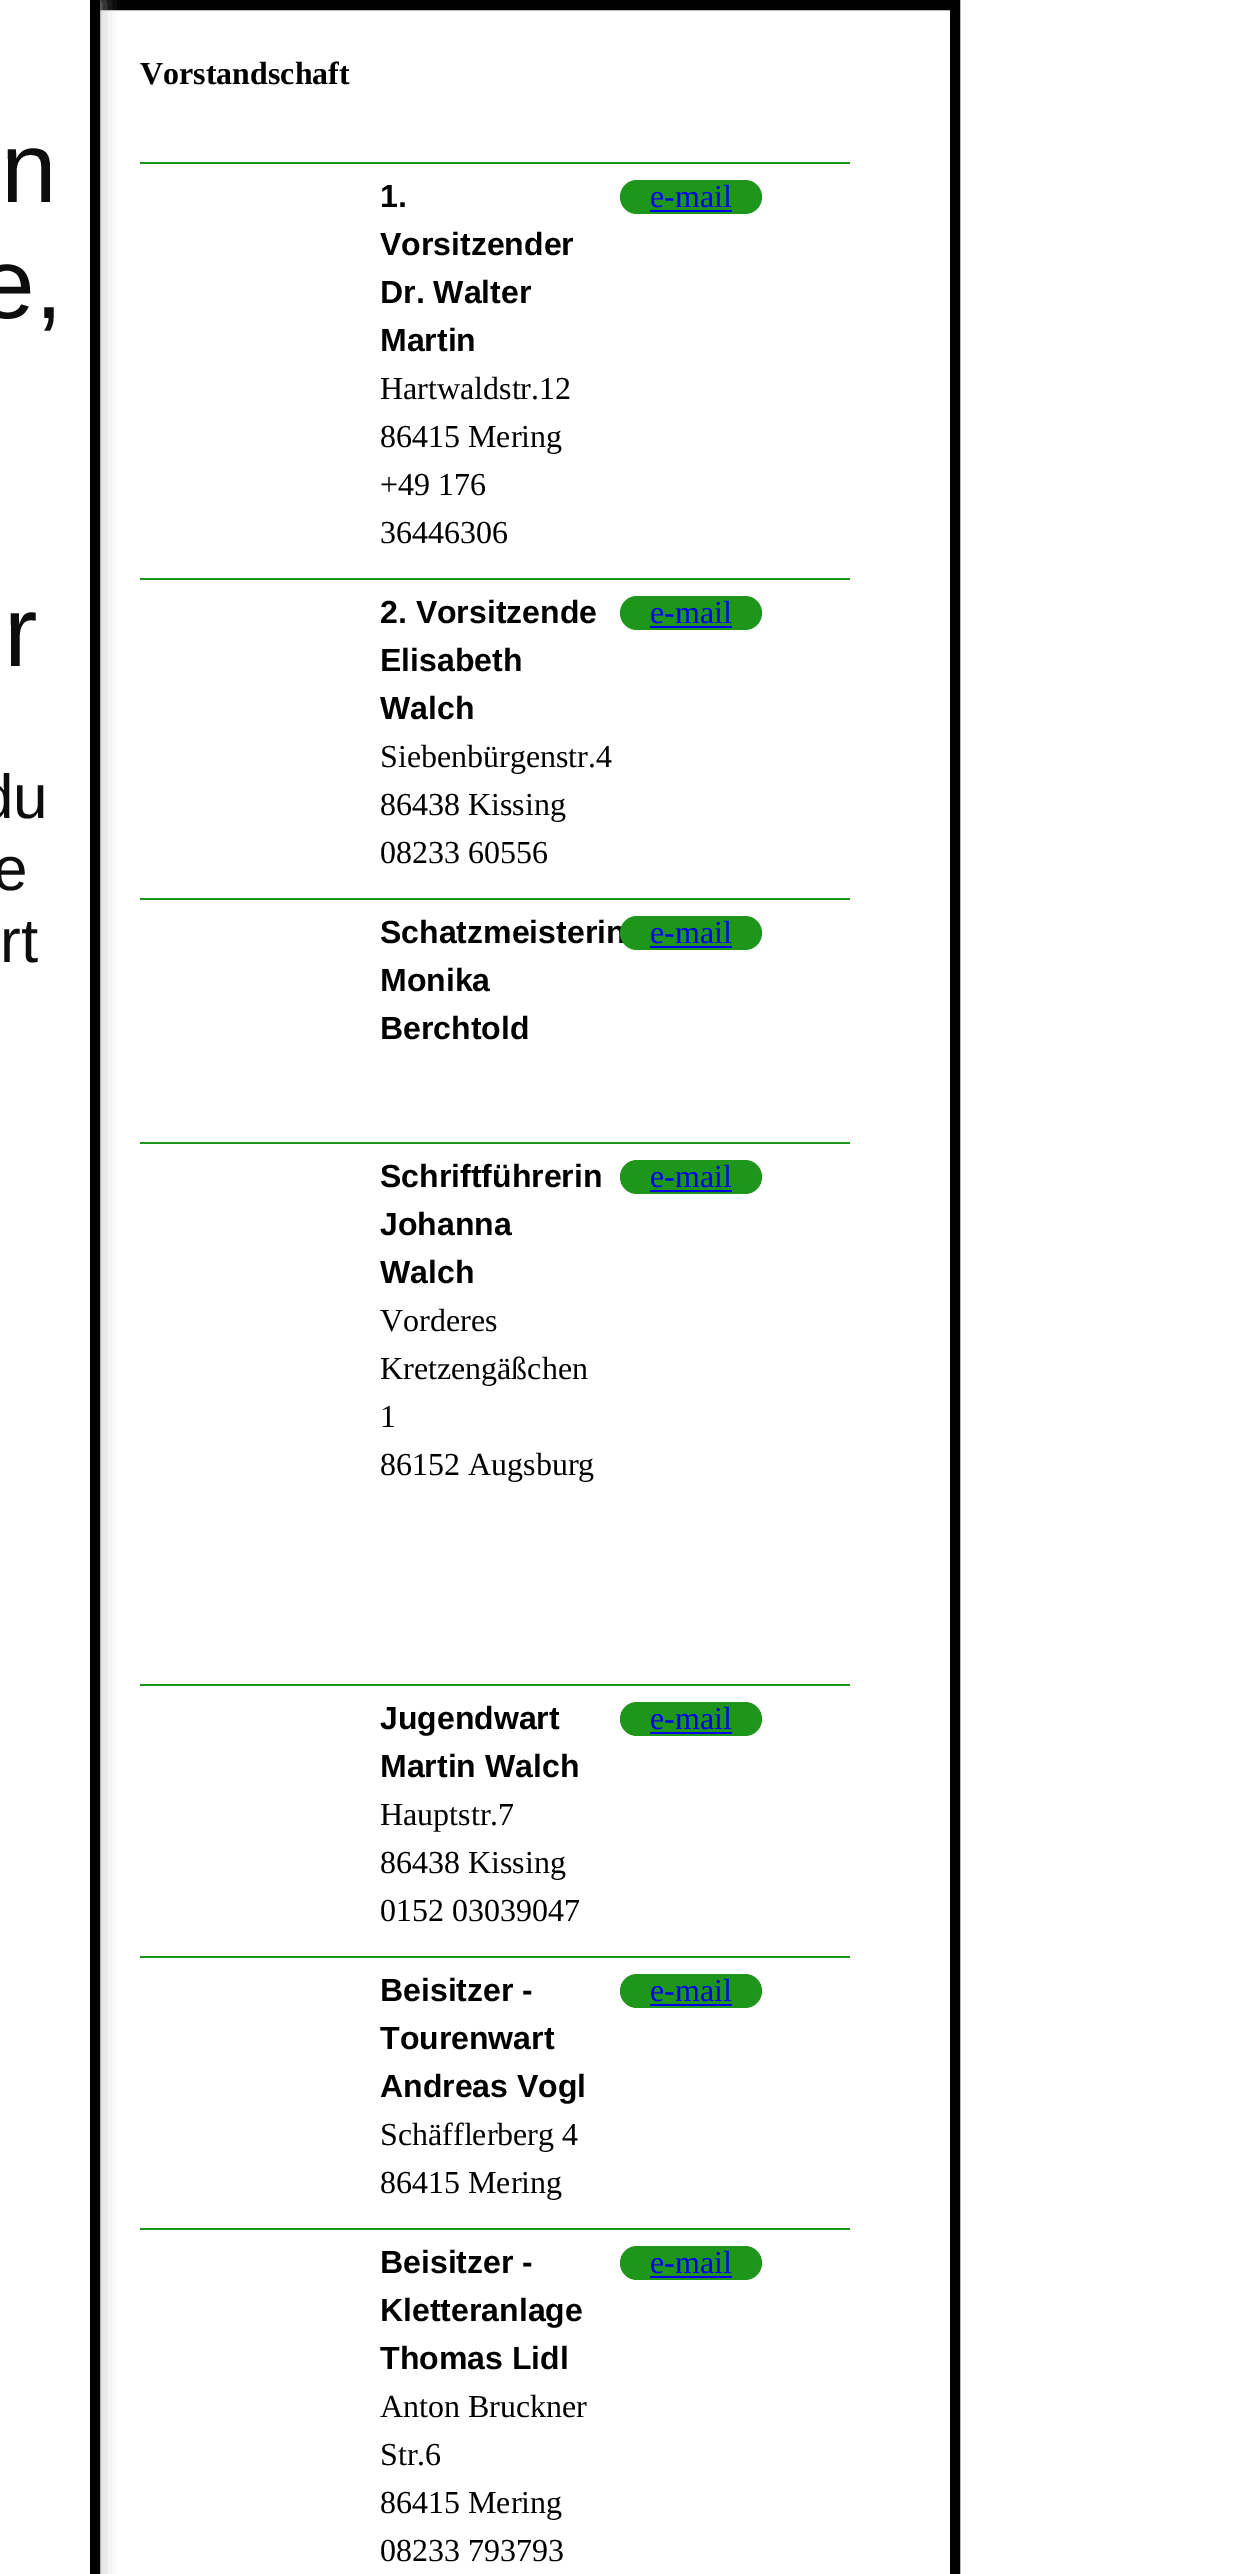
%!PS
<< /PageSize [1248 2574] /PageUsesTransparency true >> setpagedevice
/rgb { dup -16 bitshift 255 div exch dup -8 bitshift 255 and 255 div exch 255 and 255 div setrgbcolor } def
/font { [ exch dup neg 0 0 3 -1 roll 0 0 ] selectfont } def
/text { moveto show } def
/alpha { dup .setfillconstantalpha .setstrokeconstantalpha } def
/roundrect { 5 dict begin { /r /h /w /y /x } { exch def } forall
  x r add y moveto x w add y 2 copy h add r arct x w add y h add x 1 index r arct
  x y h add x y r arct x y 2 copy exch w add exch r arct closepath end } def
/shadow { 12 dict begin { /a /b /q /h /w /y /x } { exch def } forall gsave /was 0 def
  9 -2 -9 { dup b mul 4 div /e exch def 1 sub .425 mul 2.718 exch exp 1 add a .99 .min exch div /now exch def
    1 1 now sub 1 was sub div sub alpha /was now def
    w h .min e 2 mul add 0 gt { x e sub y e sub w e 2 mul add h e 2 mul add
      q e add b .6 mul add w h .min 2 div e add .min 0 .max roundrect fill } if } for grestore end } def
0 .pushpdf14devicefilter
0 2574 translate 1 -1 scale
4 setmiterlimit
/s1 { /LiberationSans-Regular 100 font 16#0D0D0D rgb } def
/s2 { /LiberationSans-Regular 62 font 16#0D0D0D rgb } def
/s3 { /LiberationSerif-Bold 32 font 16#000000 rgb } def
/s4 { /LiberationSans-Bold 32 font 16#000000 rgb } def
/s5 { /LiberationSerif-Regular 32 font 16#000000 rgb } def
/s6 { /LiberationSerif-Regular 32 font 16#0000EE rgb } def
16#FFFFFF rgb
0 0 1248 2574 rectfill
16#000000 rgb
10 setlinewidth
95 5 860 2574 rectstroke
gsave
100 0 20 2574 rectclip
16#B5B5B5 rgb
-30 0 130 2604 0 10 0.95 shadow
grestore
s1
(n) 1 202 text
(e,) -21 318 text
(r) 4 666 text
s2
(du) -21 818 text
(e) -7 890 text
(rt) 0 962 text
s3
(Vorstandschaft) 140 84 text
16#1D961B rgb
140 162 710 2 rectfill
s4
(1.) 380 207 text
(Vorsitzender) 380 255 text
(Dr. Walter) 380 303 text
(Martin) 380 351 text
s5
(Hartwaldstr.12) 380 399 text
(86415 Mering) 380 447 text
(+49 176) 380 495 text
(36446306) 380 543 text
16#1D961B rgb
620 180 142 34 17 roundrect fill
s6
(e-mail) 650 207 text
650 210 82 2 rectfill
16#1D961B rgb
140 578 710 2 rectfill
s4
(2. Vorsitzende) 380 623 text
(Elisabeth) 380 671 text
(Walch) 380 719 text
s5
(Siebenbürgenstr.4) 380 767 text
(86438 Kissing) 380 815 text
(08233 60556) 380 863 text
16#1D961B rgb
620 596 142 34 17 roundrect fill
s6
(e-mail) 650 623 text
650 626 82 2 rectfill
16#1D961B rgb
140 898 710 2 rectfill
s4
(Schatzmeisterin) 380 943 text
(Monika) 380 991 text
(Berchtold) 380 1039 text
16#1D961B rgb
620 916 142 34 17 roundrect fill
s6
(e-mail) 650 943 text
650 946 82 2 rectfill
16#1D961B rgb
140 1142 710 2 rectfill
s4
(Schriftführerin) 380 1187 text
(Johanna) 380 1235 text
(Walch) 380 1283 text
s5
(Vorderes) 380 1331 text
(Kretzengäßchen) 380 1379 text
(1) 380 1427 text
(86152 Augsburg) 380 1475 text
16#1D961B rgb
620 1160 142 34 17 roundrect fill
s6
(e-mail) 650 1187 text
650 1190 82 2 rectfill
16#1D961B rgb
140 1684 710 2 rectfill
s4
(Jugendwart) 380 1729 text
(Martin Walch) 380 1777 text
s5
(Hauptstr.7) 380 1825 text
(86438 Kissing) 380 1873 text
(0152 03039047) 380 1921 text
16#1D961B rgb
620 1702 142 34 17 roundrect fill
s6
(e-mail) 650 1729 text
650 1732 82 2 rectfill
16#1D961B rgb
140 1956 710 2 rectfill
s4
(Beisitzer -) 380 2001 text
(Tourenwart) 380 2049 text
(Andreas Vogl) 380 2097 text
s5
(Schäfflerberg 4) 380 2145 text
(86415 Mering) 380 2193 text
16#1D961B rgb
620 1974 142 34 17 roundrect fill
s6
(e-mail) 650 2001 text
650 2004 82 2 rectfill
16#1D961B rgb
140 2228 710 2 rectfill
s4
(Beisitzer -) 380 2273 text
(Kletteranlage) 380 2321 text
(Thomas Lidl) 380 2369 text
s5
(Anton Bruckner) 380 2417 text
(Str.6) 380 2465 text
(86415 Mering) 380 2513 text
(08233 793793) 380 2561 text
16#1D961B rgb
620 2246 142 34 17 roundrect fill
s6
(e-mail) 650 2273 text
650 2276 82 2 rectfill
.poppdf14devicefilter showpage
